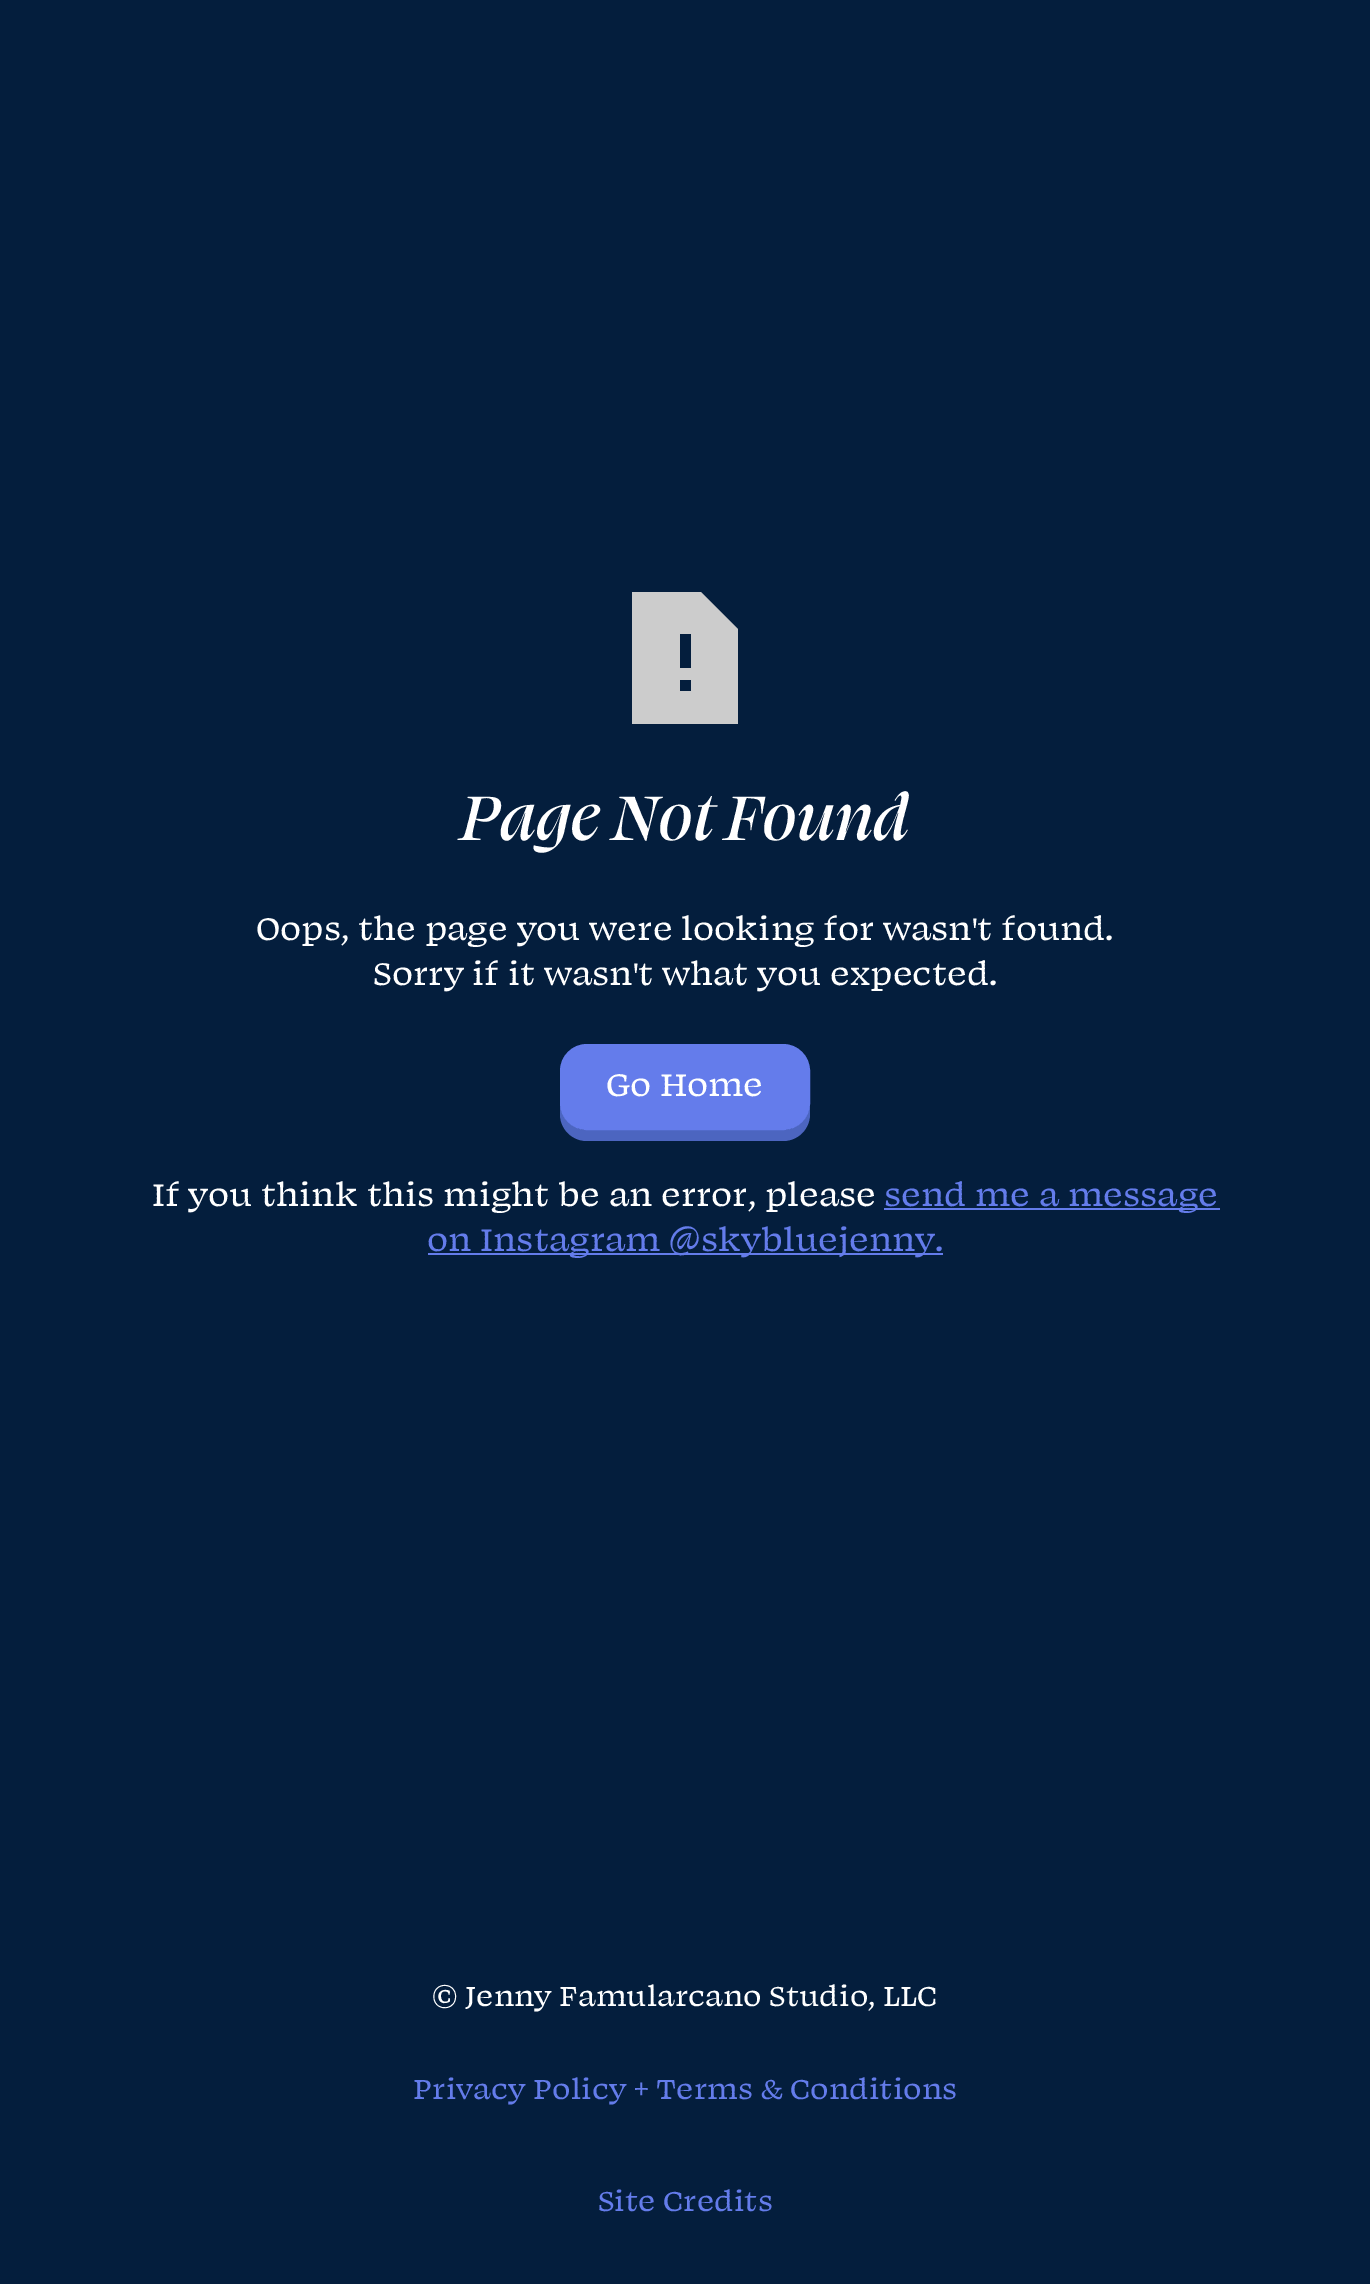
%!PS
<< /PageSize [1370 2284] >> setpagedevice
/rgb { dup -16 bitshift 255 div exch dup -8 bitshift 255 and 255 div exch 255 and 255 div setrgbcolor } def
/font { [ exch dup neg 0 0 3 -1 roll 0 0 ] selectfont } def
/text { moveto show } def
/roundrect { 5 dict begin { /r /h /w /y /x } { exch def } forall
  x r add y moveto x w add y 2 copy h add r arct x w add y h add x 1 index r arct
  x y h add x y r arct x y 2 copy exch w add exch r arct closepath end } def
0 2284 translate 1 -1 scale
4 setmiterlimit
/s1 { /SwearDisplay-MediumItalic 72 font 16#FFFFFF rgb } def
/s2 { /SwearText-Medium 36 font 16#FFFFFF rgb } def
/s3 { /SwearText-Medium 36 font 16#647CEB rgb } def
/s4 { /SwearText-Medium 31.5 font 16#FFFFFF rgb } def
/s5 { /SwearText-Medium 31.5 font 16#647CEB rgb } def
16#041E3D rgb
0 0 1370 2284 rectfill
16#CCCCCC rgb
632 592 moveto 701 592 lineto 738 629 lineto 738 724 lineto 632 724 lineto closepath 680 634 moveto 691 634 lineto 691 668 lineto 680 668 lineto closepath 680 680 moveto 691 680 lineto 691 691 lineto 680 691 lineto closepath eofill
s1
(Page Not Found) 460 840 text
s2
(Oops, the page you were looking for wasn't found.) 256 940 text
(Sorry if it wasn't what you expected.) 373 985 text
16#4C65C0 rgb
560 1078 moveto 560 1114 lineto 560 1129 572 1141 587 1141 curveto 783 1141 lineto 798 1141 810 1129 810 1114 curveto 810 1102 lineto 810 1117 798 1130 783 1130 curveto 587 1130 lineto 572 1130 560 1117 560 1102 curveto closepath fill
16#647CEB rgb
561 1045 248 84 26 roundrect gsave fill grestore
2 setlinewidth
stroke
s2
(Go Home) 606 1096 text
(If you think this might be an error, please) 152 1206 text
16#647CEB rgb
884 1208 336 2 rectfill
(send me a message) 884 1206 text
428 1253 515 2 rectfill
(on Instagram @skybluejenny.) 427 1251 text
s4
(© Jenny Famularcano Studio, LLC) 432 2006 text
s5
(Privacy Policy + Terms & Conditions) 413 2099 text
(Site Credits) 598 2211 text
showpage
